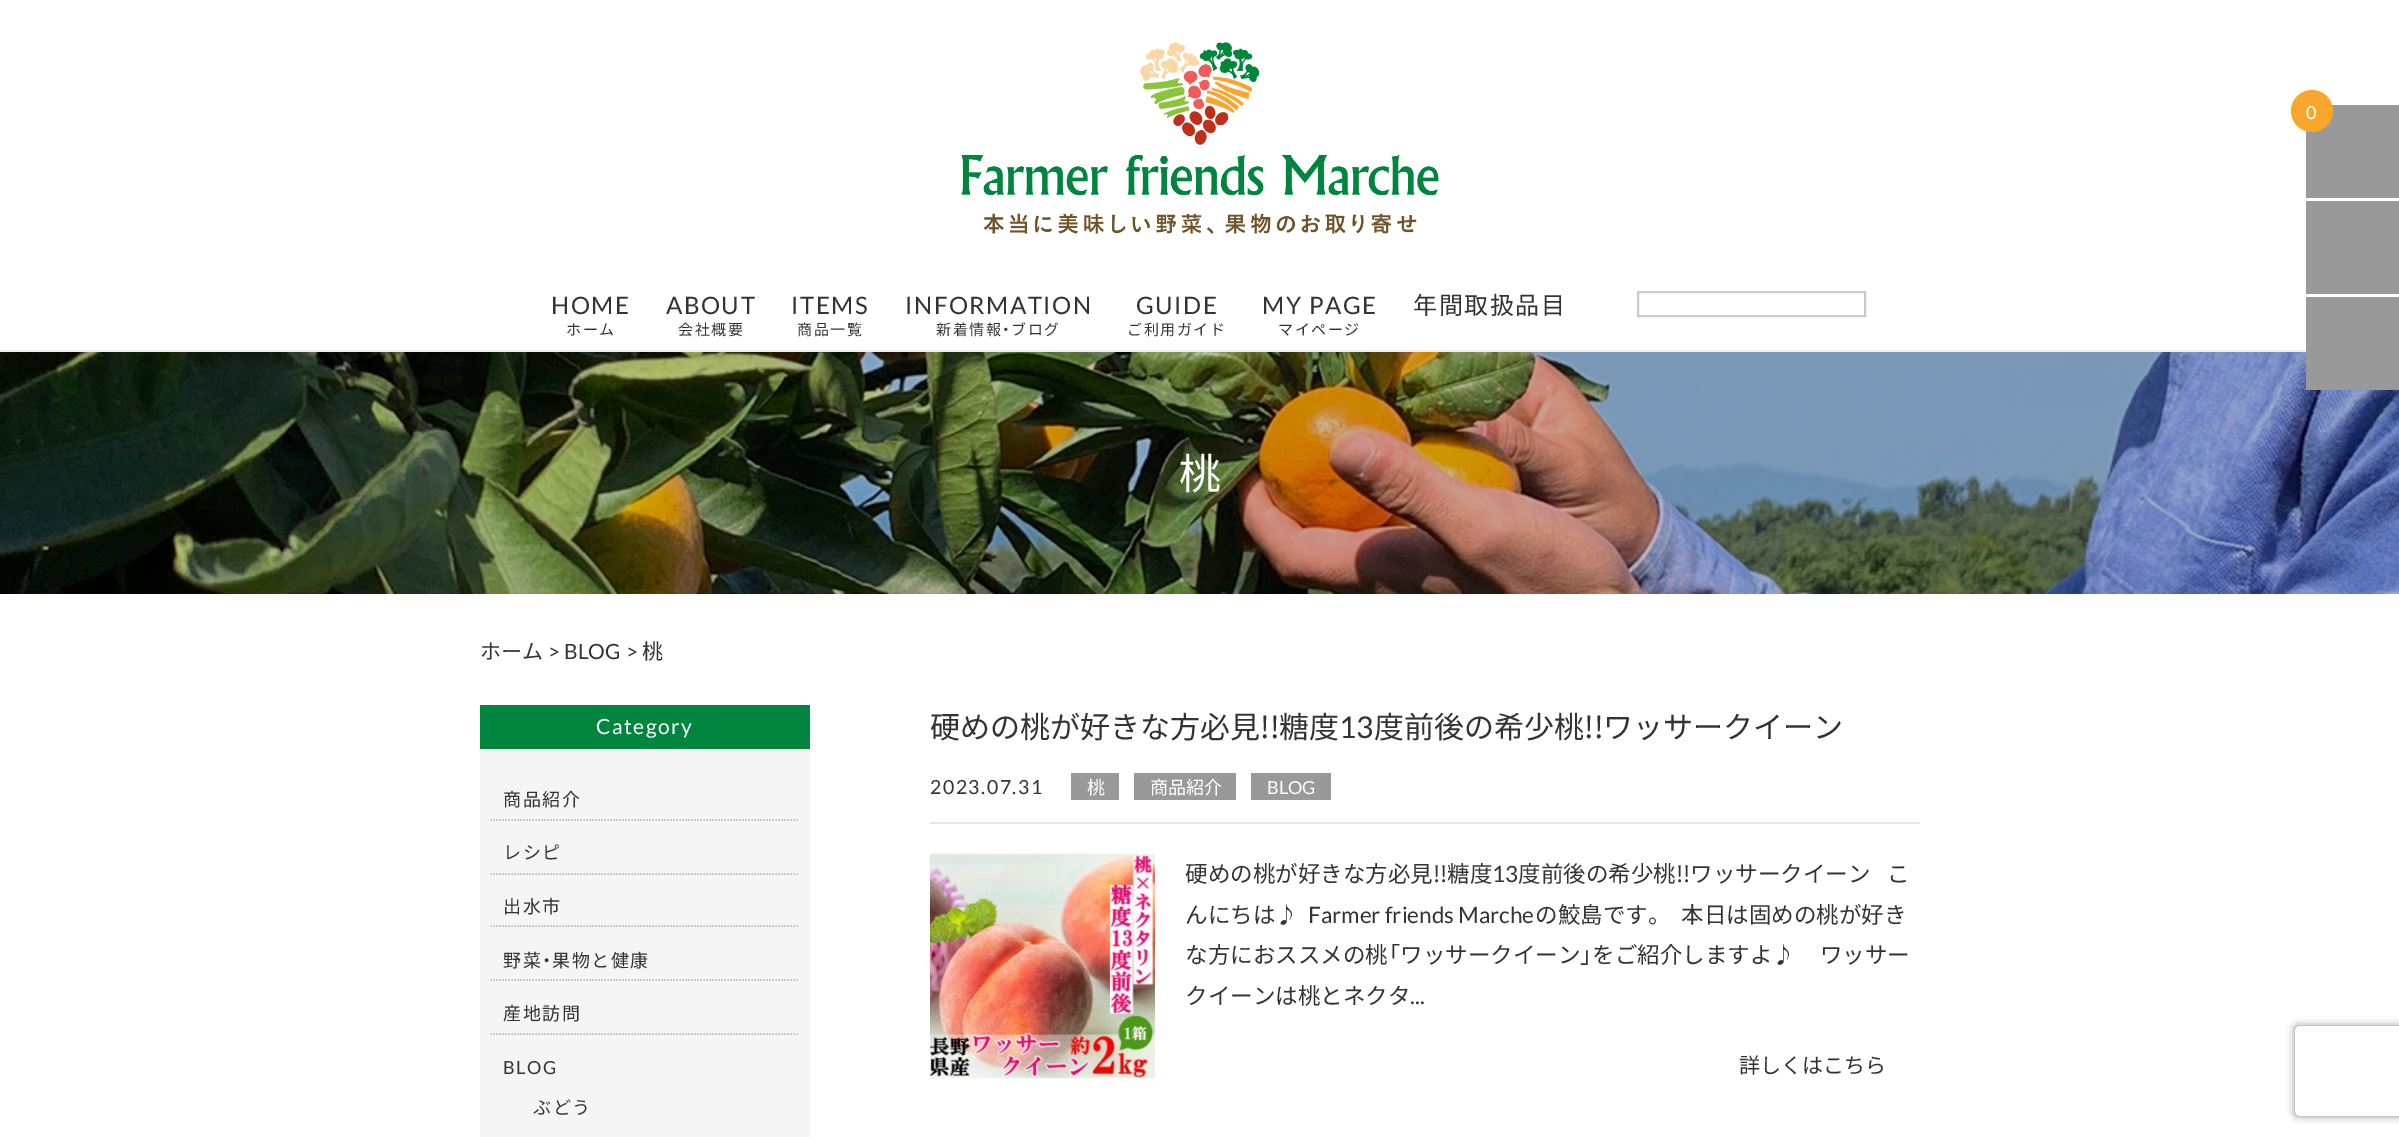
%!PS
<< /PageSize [2399 1137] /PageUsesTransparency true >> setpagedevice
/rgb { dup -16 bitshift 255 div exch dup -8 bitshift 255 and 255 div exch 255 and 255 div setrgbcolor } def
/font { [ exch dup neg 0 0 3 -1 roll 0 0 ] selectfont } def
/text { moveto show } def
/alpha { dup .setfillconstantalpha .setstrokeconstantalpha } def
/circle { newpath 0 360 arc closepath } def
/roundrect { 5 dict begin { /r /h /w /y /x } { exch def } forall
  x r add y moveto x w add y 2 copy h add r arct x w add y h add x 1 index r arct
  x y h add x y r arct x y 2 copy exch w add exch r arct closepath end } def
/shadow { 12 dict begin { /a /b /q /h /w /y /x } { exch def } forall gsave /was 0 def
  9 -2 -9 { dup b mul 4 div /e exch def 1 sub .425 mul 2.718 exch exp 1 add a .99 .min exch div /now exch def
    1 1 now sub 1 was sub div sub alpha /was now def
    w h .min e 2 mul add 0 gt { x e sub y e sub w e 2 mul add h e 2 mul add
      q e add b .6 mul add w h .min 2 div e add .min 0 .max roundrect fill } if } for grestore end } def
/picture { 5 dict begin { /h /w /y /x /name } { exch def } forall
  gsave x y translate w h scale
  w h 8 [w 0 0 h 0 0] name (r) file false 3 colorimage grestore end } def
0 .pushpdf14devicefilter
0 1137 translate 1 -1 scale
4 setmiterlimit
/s1 { /Lato-Regular 18 font 16#FFFFFF rgb } def
/s2 { /NotoSansJP-Regular 42 font 16#FFFFFF rgb } def
/s3 { /NotoSansJP-Regular 21 font 16#333333 rgb } def
/s4 { /Lato-Regular 21 font 16#333333 rgb } def
/s5 { /NotoSansJP-Regular 30 font 16#333333 rgb } def
/s6 { /Lato-Regular 30 font 16#333333 rgb } def
/s7 { /NotoSansJP-Regular 18 font 16#FFFFFF rgb } def
/s8 { /NotoSansJP-Regular 22.5 font 16#333333 rgb } def
/s9 { /Lato-Regular 22.5 font 16#333333 rgb } def
/s10 { /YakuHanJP-Regular 22.5 font 16#333333 rgb } def
16#FFFFFF rgb
0 0 2399 1137 rectfill
16#999999 rgb
2306 105 93 93 rectfill
16#F9A62C rgb
2312 111 21 circle fill
s1
(0) 2306 119 text
16#999999 rgb
2306 201 93 93 rectfill
(pic2.raw) 0 352 2399 242 picture
2306 297 93 93 rectfill
16#EEEEEE rgb
0 350 2306 2 rectfill
(pic1.raw) 961 42 478 192 picture
/Lato-Regular 24 font
16#333333 rgb
551 314 moveto 1.5 0 (HOME) ashow
/NotoSansJP-Regular 15 font
566 335 moveto 1.5 0 (ホーム) ashow
/Lato-Regular 24 font
666 314 moveto 1.5 0 (ABOUT) ashow
/NotoSansJP-Regular 15 font
678 335 moveto 1.5 0 (会社概要) ashow
/Lato-Regular 24 font
791 314 moveto 1.5 0 (ITEMS) ashow
/NotoSansJP-Regular 15 font
797 335 moveto 1.5 0 (商品一覧) ashow
/Lato-Regular 24 font
905 314 moveto 1.5 0 (INFORMATION) ashow
/NotoSansJP-Regular 15 font
936 335 moveto 1.5 0 (新着情報) ashow
/YakuHanJP-Regular 15 font
1002 335 moveto 1.5 0 (・) ashow
/NotoSansJP-Regular 15 font
1011 335 moveto 1.5 0 (ブログ) ashow
/Lato-Regular 24 font
1136 314 moveto 1.5 0 (GUIDE) ashow
/NotoSansJP-Regular 15 font
1127 335 moveto 1.5 0 (ご利用ガイド) ashow
/Lato-Regular 24 font
1262 314 moveto 1 0 32 1.5 0 (MY PAGE) awidthshow
/NotoSansJP-Regular 15 font
1278 335 moveto 1.5 0 (マイページ) ashow
/NotoSansJP-Regular 24 font
1413 314 moveto 1.5 0 (年間取扱品目) ashow
16#CACACA rgb
2 setlinewidth
1638 292 227 24 rectstroke
s2
(桃) 1179 489 text
s3
(ホーム) 480 659 text
s4
(>) 548 659 text
(BLOG) 564 659 text
(>) 626 659 text
s3
(桃) 642 659 text
16#F5F5F5 rgb
480 749 330 388 rectfill
16#00853E rgb
480 705 330 44 rectfill
/Lato-Regular 21 font
16#FFFFFF rgb
596 734 moveto 1.5 0 (Category) ashow
16#BFBABA rgb
1.5 setlinewidth
[1.5 1.5] 0 setdash
490.5 820 moveto 799.5 820 lineto stroke
/NotoSansJP-Regular 18 font
16#333333 rgb
503 806 moveto 1.5 0 (商品紹介) ashow
16#BFBABA rgb
490.5 874 moveto 799.5 874 lineto stroke
16#333333 rgb
503 859 moveto 1.5 0 (レシピ) ashow
16#BFBABA rgb
490.5 926 moveto 799.5 926 lineto stroke
16#333333 rgb
503 913 moveto 1.5 0 (出水市) ashow
16#BFBABA rgb
490.5 980 moveto 799.5 980 lineto stroke
16#333333 rgb
503 967 moveto 1.5 0 (野菜) ashow
/YakuHanJP-Regular 18 font
542 967 moveto 1.5 0 (・) ashow
/NotoSansJP-Regular 18 font
552 967 moveto 1.5 0 (果物と健康) ashow
16#BFBABA rgb
490.5 1034 moveto 799.5 1034 lineto stroke
16#333333 rgb
503 1020 moveto 1.5 0 (産地訪問) ashow
/Lato-Regular 18 font
503 1074 moveto 1.5 0 (BLOG) ashow
/NotoSansJP-Regular 18 font
533 1114 moveto 1.5 0 (ぶどう) ashow
16#E6E6E6 rgb
930 822 990 2 rectfill
s5
(硬めの桃が好きな方必見!!糖度) 930 738 text
s6
(13) 1339 738 text
s5
(度前後の希少桃!!ワッサークイーン) 1374 738 text
/Lato-Regular 19.5 font
930 794 moveto 1.5 0 (2023.07.31) ashow
16#999999 rgb
1071 773 48 27 rectfill
s7
(桃) 1087 794 text
16#999999 rgb
1134 773 102 27 rectfill
s7
(商品紹介) 1150 794 text
16#999999 rgb
1251 773 80 27 rectfill
s1
(BLOG) 1267 794 text
(pic3.raw) 930 853 225 226 picture
s8
(硬めの桃が好きな方必見!!糖度) 1185 882 text
s9
(13) 1492 882 text
/NotoSansJP-Regular 22.5 font
1518 882 moveto 0.5 0 32 (度前後の希少桃!!ワッサークイーン   こ) widthshow
(んにちは♪) 1185 923 text
s9
(Farmer friends Marche) 1308 923 text
s8
(の鮫島です) 1535 923 text
s10
(。) 1648 923 text
s8
(本日は固めの桃が好き) 1681 923 text
(な方におススメの桃) 1185 963 text
s10
(「) 1388 963 text
s8
(ワッサークイーン) 1400 963 text
s10
(」) 1580 963 text
s8
(をご紹介しますよ♪     ワッサー) 1592 963 text
(クイーンは桃とネクタ) 1185 1004 text
s9
(...) 1410 1004 text
s3
(詳しくはこちら) 1739 1073 text
gsave
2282 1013 moveto 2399 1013 lineto 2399 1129 lineto 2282 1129 lineto closepath 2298 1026 moveto 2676 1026 lineto 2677.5 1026 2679 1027.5 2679 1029 curveto 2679 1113 lineto 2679 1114.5 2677.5 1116 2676 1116 curveto 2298 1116 lineto 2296.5 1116 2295 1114.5 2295 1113 curveto 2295 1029 lineto 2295 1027.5 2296.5 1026 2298 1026 curveto closepath eoclip newpath
16#808080 rgb
2295 1026 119 90 3 4 1 shadow
grestore
.poppdf14devicefilter showpage
